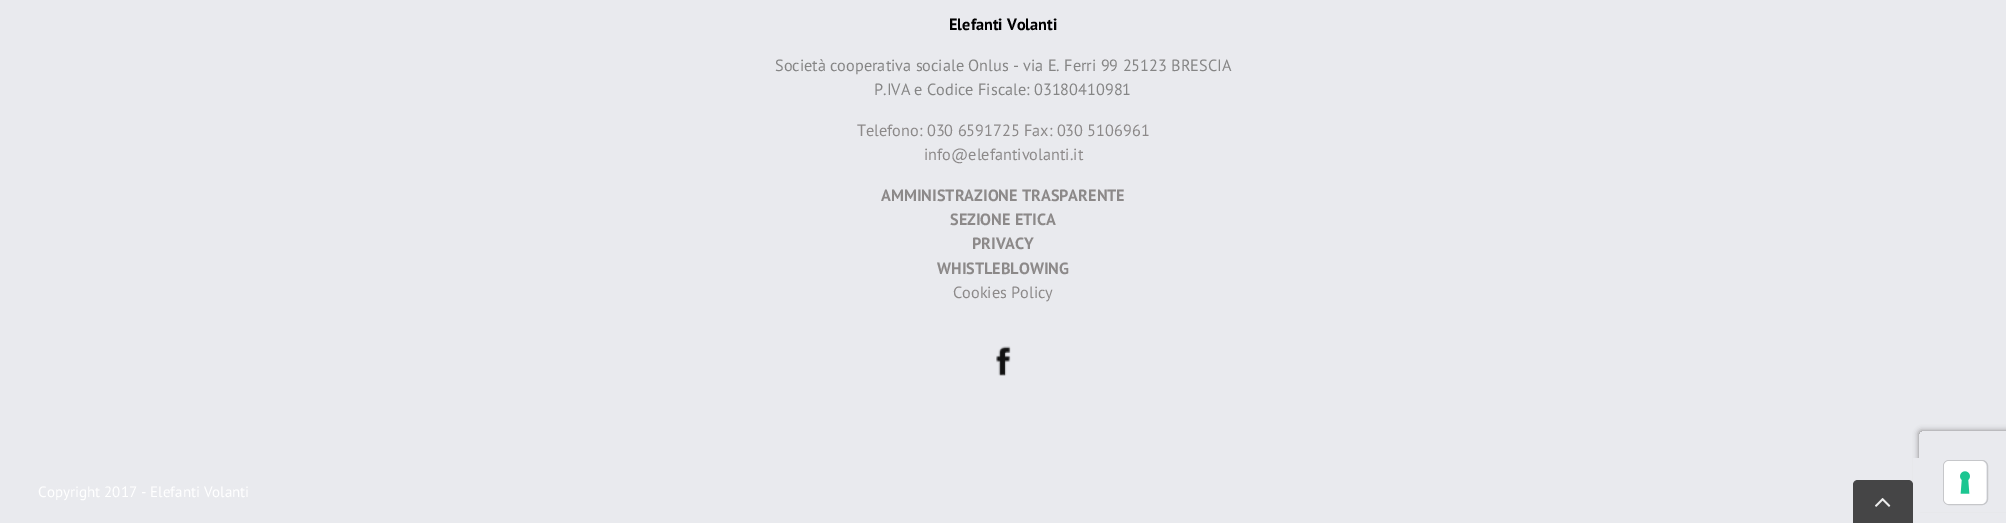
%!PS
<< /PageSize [2006 523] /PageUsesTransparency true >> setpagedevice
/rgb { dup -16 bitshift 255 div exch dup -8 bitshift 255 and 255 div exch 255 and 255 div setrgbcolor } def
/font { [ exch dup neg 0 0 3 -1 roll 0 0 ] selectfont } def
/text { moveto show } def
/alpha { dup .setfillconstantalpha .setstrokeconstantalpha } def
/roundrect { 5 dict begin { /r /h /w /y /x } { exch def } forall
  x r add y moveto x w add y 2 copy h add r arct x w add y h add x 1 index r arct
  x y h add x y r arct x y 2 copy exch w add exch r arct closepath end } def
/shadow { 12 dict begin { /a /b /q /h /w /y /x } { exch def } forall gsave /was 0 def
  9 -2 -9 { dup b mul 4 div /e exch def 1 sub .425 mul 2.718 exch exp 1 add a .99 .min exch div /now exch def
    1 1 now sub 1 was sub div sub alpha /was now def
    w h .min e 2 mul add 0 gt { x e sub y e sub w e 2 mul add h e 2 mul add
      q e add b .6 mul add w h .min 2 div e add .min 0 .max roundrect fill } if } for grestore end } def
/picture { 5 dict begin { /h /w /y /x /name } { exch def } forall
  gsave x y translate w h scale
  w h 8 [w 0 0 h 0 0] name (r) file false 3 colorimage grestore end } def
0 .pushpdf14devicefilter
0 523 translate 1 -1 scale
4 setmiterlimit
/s1 { /PTSans-Bold 16.25 font 16#000000 rgb } def
/s2 { /PTSans-Regular 16.25 font 16#858585 rgb } def
/s3 { /PTSans-Regular 16.25 font 16#8C8989 rgb } def
/s4 { /PTSans-Bold 16.25 font 16#8C8989 rgb } def
/s5 { /PTSans-Regular 15 font 16#FFFFFF rgb } def
16#E9EAEE rgb
0 0 2006 523 rectfill
s1
(Elefanti Volanti) 949 30 text
s2
(Società cooperativa sociale Onlus - via E. Ferri 99 25123 BRESCIA) 775 71 text
(P.IVA e Codice Fiscale: 03180410981) 874 95 text
s3
(Telefono: 030 6591725 Fax: 030 5106961) 857 136 text
(info@elefantivolanti.it) 924 160 text
s4
(AMMINISTRAZIONE TRASPARENTE) 881 201 text
(SEZIONE ETICA) 950 225 text
(PRIVACY) 972 249 text
(WHISTLEBLOWING) 937 274 text
s3
(Cookies Policy) 953 298 text
(pic1.raw) 996 346 15 30 picture
gsave
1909 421 moveto 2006 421 lineto 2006 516 lineto 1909 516 lineto closepath 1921.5 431 moveto 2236.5 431 lineto 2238 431 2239 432 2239 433.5 curveto 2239 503.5 lineto 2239 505 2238 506 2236.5 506 curveto 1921.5 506 lineto 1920 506 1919 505 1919 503.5 curveto 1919 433.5 lineto 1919 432 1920 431 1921.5 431 curveto closepath eoclip newpath
16#808080 rgb
1919 431 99 75 2.5 3 1 shadow
grestore
16#E9EAEE rgb
1913 458 93 54 rectfill
s5
(Copyright 2017 - Elefanti Volanti) 38 497 text
16#454546 rgb
1858 480 moveto 1908 480 lineto 1911 480 1913 482 1913 485 curveto 1913 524 lineto 1853 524 lineto 1853 485 lineto 1853 482 1855 480 1858 480 curveto closepath fill
(pic2.raw) 1875 498 16 9 picture
16#C6C7CA rgb
1943.5 460.5 44 44 5.5 roundrect stroke
16#FFFFFF rgb
1944 461 42 43 5 roundrect fill
(pic3.raw) 1960 471 10 23 picture
.poppdf14devicefilter showpage
